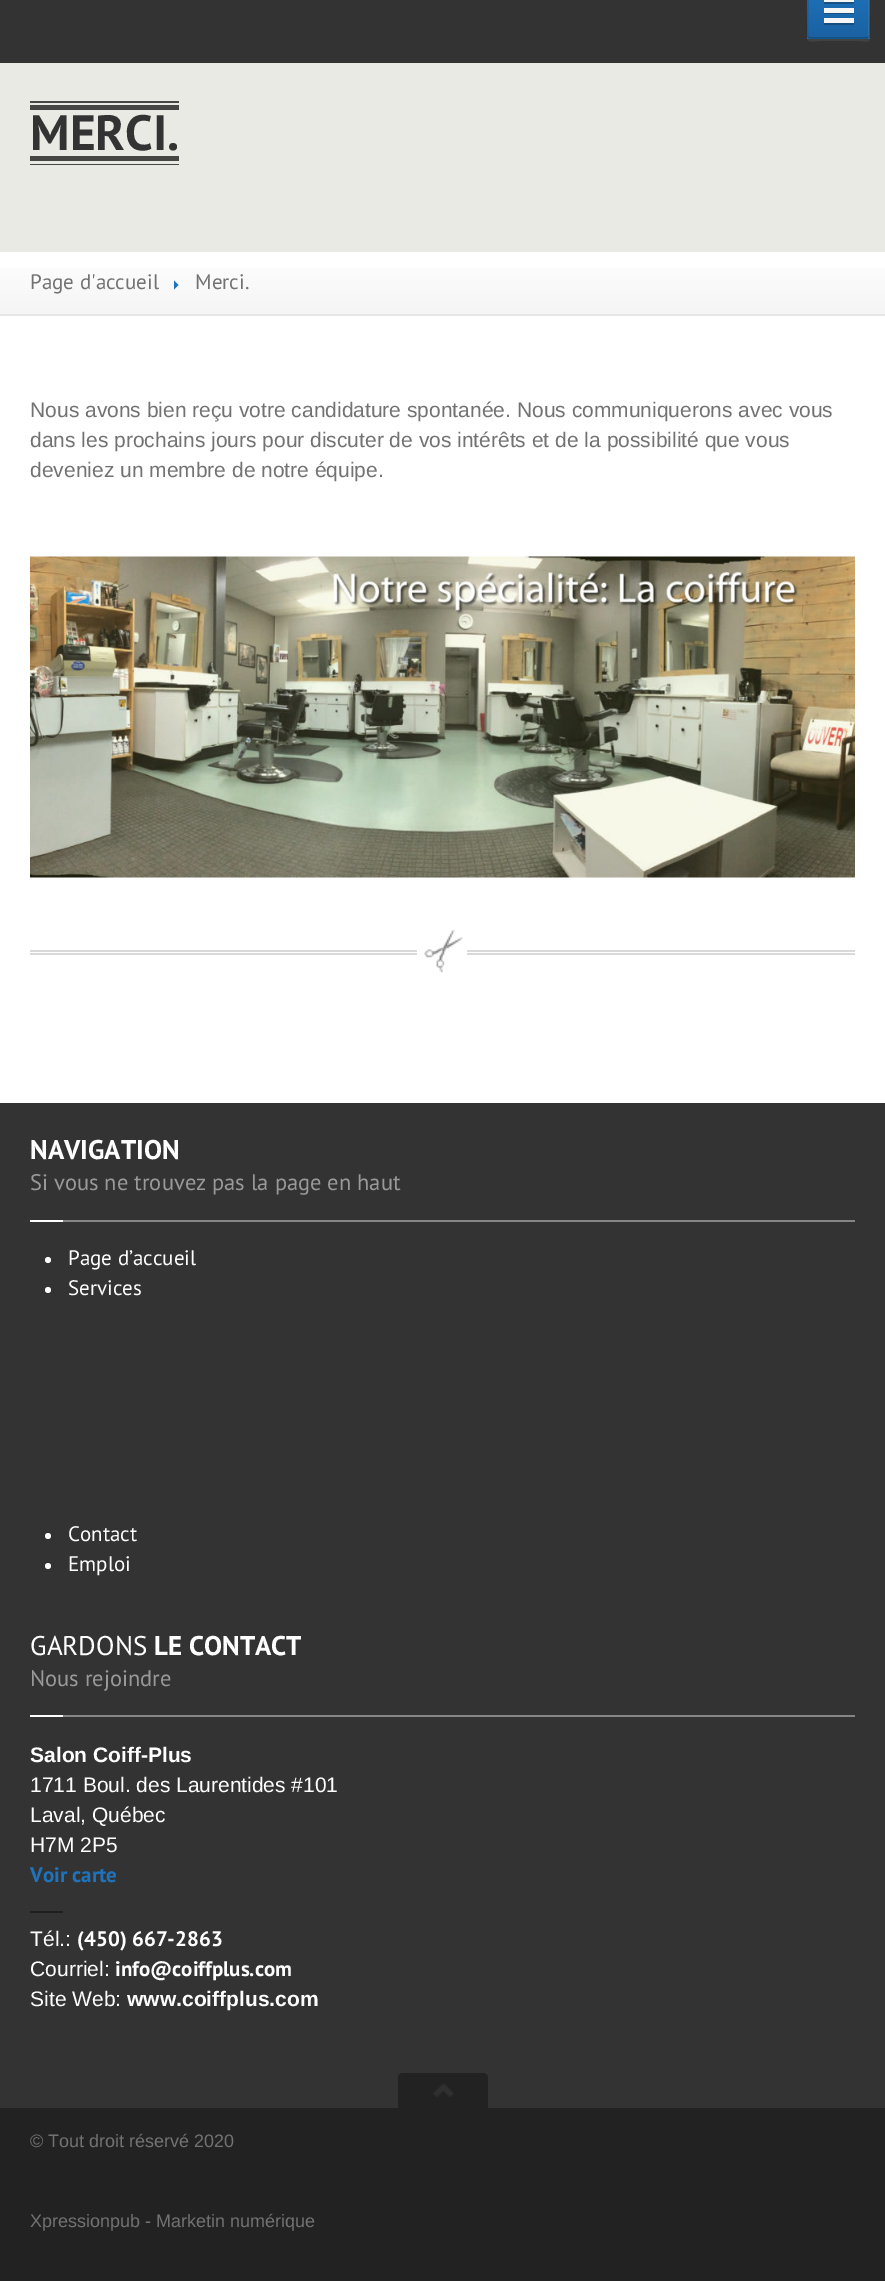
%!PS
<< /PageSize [885 2281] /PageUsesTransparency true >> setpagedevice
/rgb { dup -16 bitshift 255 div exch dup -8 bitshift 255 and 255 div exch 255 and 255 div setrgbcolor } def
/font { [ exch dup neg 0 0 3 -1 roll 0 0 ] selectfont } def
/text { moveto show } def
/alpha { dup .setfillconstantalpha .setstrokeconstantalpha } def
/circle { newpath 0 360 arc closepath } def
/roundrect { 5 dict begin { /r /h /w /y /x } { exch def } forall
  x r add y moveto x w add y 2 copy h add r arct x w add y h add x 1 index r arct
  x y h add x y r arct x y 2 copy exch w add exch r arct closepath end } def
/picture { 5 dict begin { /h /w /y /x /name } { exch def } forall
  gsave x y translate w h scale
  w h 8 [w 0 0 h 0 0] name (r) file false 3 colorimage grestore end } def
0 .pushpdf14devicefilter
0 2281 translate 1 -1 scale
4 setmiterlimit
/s1 { /PTSans-Bold 49.5 font 16#333333 rgb } def
/s2 { /PTSans-Regular 21 font 16#727272 rgb } def
/s3 { /LiberationSans-Regular 21 font 16#727272 rgb } def
/s4 { /PTSans-Bold 27 font 16#FFFFFF rgb } def
/s5 { /PTSans-Regular 22.5 font 16#999999 rgb } def
/s6 { /PTSans-Regular 21 font 16#FFFFFF rgb } def
/s7 { /PTSans-Regular 27 font 16#FFFFFF rgb } def
/s8 { /LiberationSans-Bold 21 font 16#FFFFFF rgb } def
/s9 { /LiberationSans-Regular 21 font 16#FFFFFF rgb } def
/s10 { /PTSans-Bold 21 font 16#1E73BE rgb } def
/s11 { /PTSans-Bold 21 font 16#FFFFFF rgb } def
/s12 { /LiberationSans-Regular 18 font 16#727272 rgb } def
16#FFFFFF rgb
0 0 885 2281 rectfill
16#333333 rgb
0 0 885 63 rectfill
16#424242 rgb
807 36 moveto 807 44 812 41 820 41 curveto 858 41 lineto 865 41 870 44 870 36 curveto 870 38 869 39 867 39 curveto 810 39 lineto 808 39 807 38 807 36 curveto closepath fill
gsave
807 -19 63 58 3 roundrect clip newpath
gsave 807 0 moveto 870 0 lineto 870 38 lineto 807 38 lineto closepath clip newpath
<< /ShadingType 2 /ColorSpace /DeviceRGB /Coords [839 -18 839 38] /Extend [true true] /Function << /FunctionType 2 /Domain [0 1] /C0 [0.118 0.451 0.745] /C1 [0.102 0.384 0.635] /N 1 >> >> shfill grestore
gsave 807 38 moveto 870 38 lineto 870 39 lineto 807 39 lineto closepath clip newpath
<< /ShadingType 2 /ColorSpace /DeviceRGB /Coords [839 37 839 93] /Extend [true true] /Function << /FunctionType 2 /Domain [0 1] /C0 [0.118 0.451 0.745] /C1 [0.102 0.384 0.635] /N 1 >> >> shfill grestore
grestore
0.1 alpha
16#FFFFFF rgb
810 -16 moveto 867 -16 lineto 868 -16 868 -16 868 -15 curveto 868 38 lineto 869 38 869 37 869 36 curveto 869 -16 lineto 869 -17 868 -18 868 -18 curveto 810 -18 lineto 810 -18 809 -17 809 -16 curveto closepath fill
0.25 alpha
16#000000 rgb
1.5 setlinewidth
868.5 37.5 moveto 867 38 lineto 810 38 lineto 808.5 37.5 lineto stroke
0.1 alpha
808.5 37.5 moveto 806.5 36 808 13.5 808 10 curveto 808 -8 lineto 808 -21 806 -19 819.5 -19 curveto 857.5 -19 lineto 871 -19 869 -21 869 -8 curveto 869 10 lineto 869 13.5 870.5 36 868.5 37.5 curveto stroke
1 alpha
16#165287 rgb
824 1.5 moveto 824 4 lineto 854 4 lineto 854 -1 lineto 853.5 -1 lineto 853.5 1.5 lineto closepath fill
16#F5F5F5 rgb
824 0 30 2 rectfill
16#154F83 rgb
824 12 moveto 824 14 lineto 854 14 lineto 854 9 lineto 853.5 9 lineto 853.5 12 lineto closepath fill
16#F5F5F5 rgb
824 8 30 5 rectfill
16#144D7F rgb
824 22.5 moveto 824 25 lineto 854 25 lineto 854 20 lineto 853.5 20 lineto 853.5 22.5 lineto closepath fill
16#F5F5F5 rgb
824 18 30 5 rectfill
16#EAEAE5 rgb
0 63 885 189 rectfill
16#464645 rgb
30 101 149 2 rectfill
30 105 149 5 rectfill
s1
(MERCI.) 30 150 text
16#464645 rgb
30 156 149 5 rectfill
30 164 149 1 rectfill
gsave 0 268 moveto 885 268 lineto 885 314 lineto 0 314 lineto closepath clip newpath
<< /ShadingType 2 /ColorSpace /DeviceRGB /Coords [443 252 443 314] /Extend [true true] /Function << /FunctionType 2 /Domain [0 1] /C0 [1 1 1] /C1 [0.961 0.961 0.961] /N 1 >> >> shfill grestore
16#E5E5E5 rgb
0 314 885 2 rectfill
s2
(Page d'accueil) 30 289 text
16#1E73BE rgb
174 289.5 moveto 174 280.5 lineto 178.5 285 lineto closepath fill
s2
(Merci.) 195 289 text
s3
(Nous avons bien reçu votre candidature spontanée. Nous communiquerons avec vous) 30 417 text
(dans les prochains jours pour discuter de vos intérêts et de la possibilité que vous) 30 447 text
(deveniez un membre de notre équipe.) 30 477 text
(pic1.raw) 30 556 825 322 picture
16#D9D9D9 rgb
30 950 825 2 rectfill
30 953 825 2 rectfill
16#FFFFFF rgb
417 950 50 5 rectfill
(pic2.raw) 424 929 39 44 picture
16#333333 rgb
0 1103 885 1005 rectfill
16#858585 rgb
63 1220 792 2 rectfill
s4
(NAVIGATION) 30 1159 text
s5
(Si vous ne trouvez pas la page en haut) 30 1190 text
16#FFFFFF rgb
30 1220 33 2 rectfill
48 1260 3 circle fill
s6
(Page d’accueil) 68 1265 text
48 1290 3 circle fill
(Services) 68 1295 text
48 1536 3 circle fill
(Contact) 68 1541 text
48 1566 3 circle fill
(Emploi) 68 1571 text
16#858585 rgb
63 1715 792 2 rectfill
s7
(GARDONS) 30 1655 text
s4
(LE CONTACT) 154 1655 text
s5
(Nous rejoindre) 30 1686 text
16#FFFFFF rgb
30 1715 33 2 rectfill
s8
(Salon Coiff-Plus) 30 1762 text
s9
(1711 Boul. des Laurentides #101) 30 1792 text
(Laval, Québec) 30 1822 text
(H7M 2P5) 30 1852 text
s10
(Voir carte) 30 1882 text
16#1F1F1F rgb
30 1911 33 2 rectfill
s9
(Tél.:) 30 1946 text
s11
(\(450\) 667-2863) 77 1946 text
s9
(Courriel:) 30 1976 text
s11
(info@coiffplus.com) 115 1976 text
s9
(Site Web:) 30 2006 text
s8
(www.coiffplus.com) 127 2006 text
16#222222 rgb
0 2108 885 173 rectfill
403 2073 moveto 483 2073 lineto 486 2073 488 2075 488 2078 curveto 488 2108 lineto 398 2108 lineto 398 2078 lineto 398 2075 400 2073 403 2073 curveto closepath fill
(pic3.raw) 433 2083 21 14 picture
s12
(© Tout droit réservé 2020) 30 2147 text
(Xpressionpub - Marketin numérique) 30 2227 text
.poppdf14devicefilter showpage
